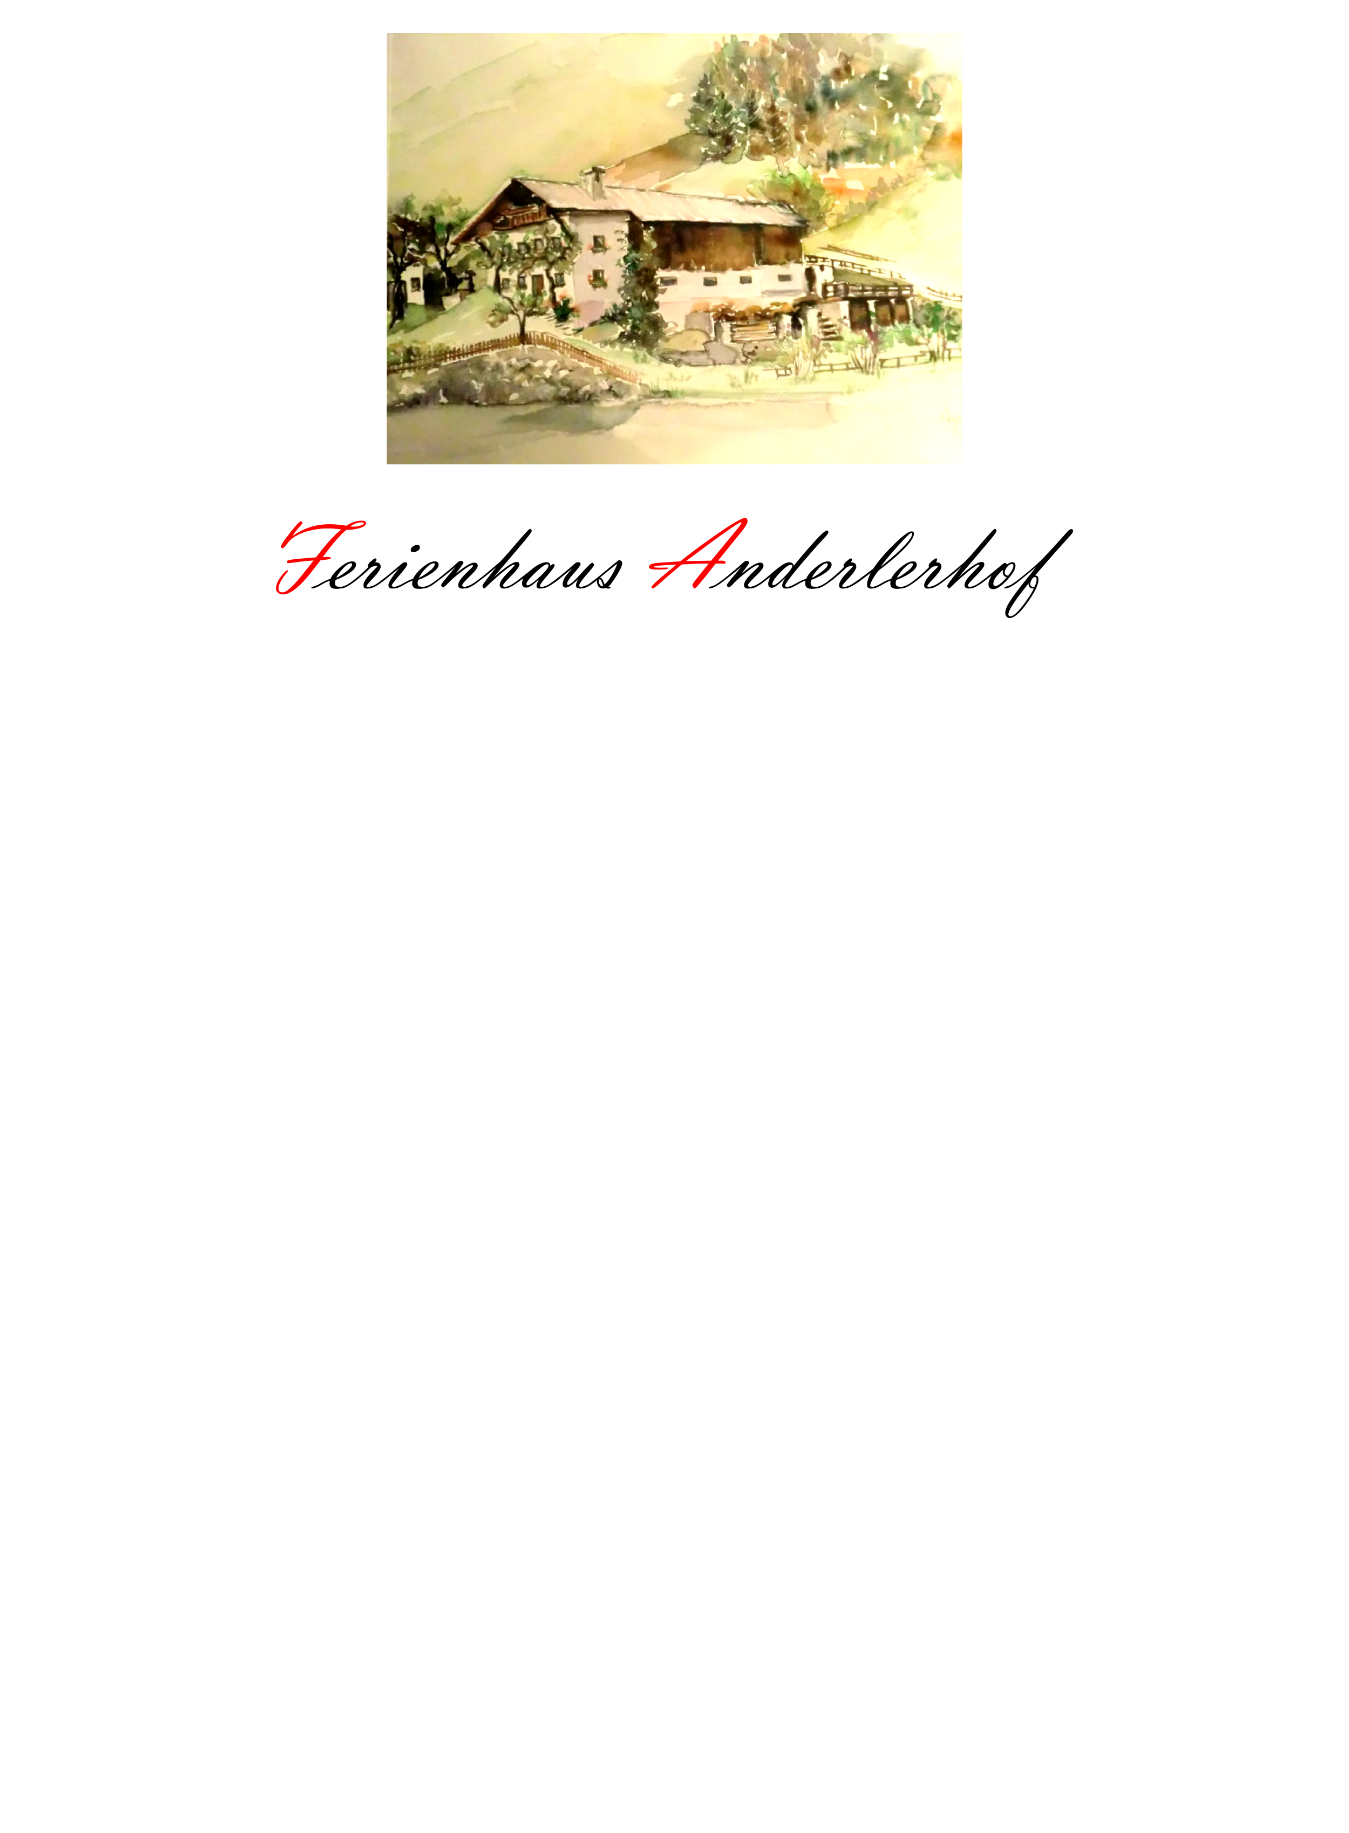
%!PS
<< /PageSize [1349 1833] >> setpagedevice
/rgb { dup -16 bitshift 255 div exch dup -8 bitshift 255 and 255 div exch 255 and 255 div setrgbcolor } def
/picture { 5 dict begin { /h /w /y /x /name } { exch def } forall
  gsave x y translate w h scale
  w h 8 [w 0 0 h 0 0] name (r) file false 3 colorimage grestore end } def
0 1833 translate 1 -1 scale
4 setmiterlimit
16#FFFFFF rgb
0 0 1349 1833 rectfill
(pic1.raw) 276 33 797 585 picture
showpage
